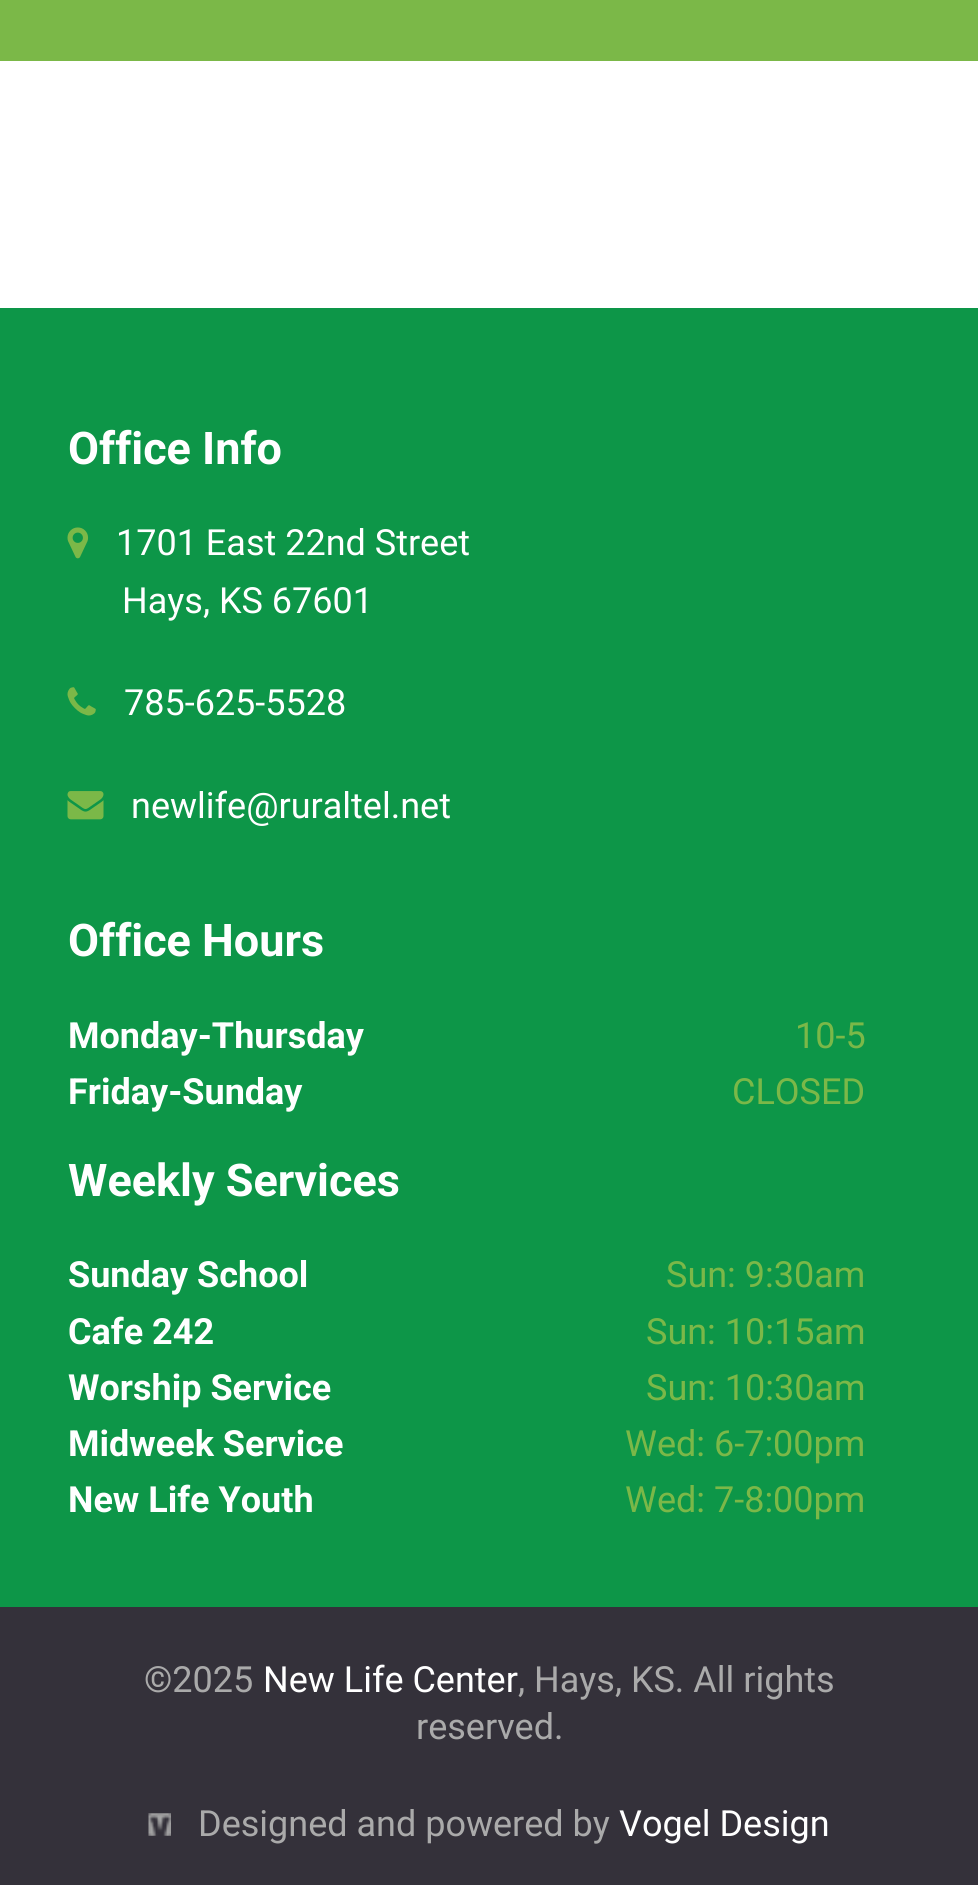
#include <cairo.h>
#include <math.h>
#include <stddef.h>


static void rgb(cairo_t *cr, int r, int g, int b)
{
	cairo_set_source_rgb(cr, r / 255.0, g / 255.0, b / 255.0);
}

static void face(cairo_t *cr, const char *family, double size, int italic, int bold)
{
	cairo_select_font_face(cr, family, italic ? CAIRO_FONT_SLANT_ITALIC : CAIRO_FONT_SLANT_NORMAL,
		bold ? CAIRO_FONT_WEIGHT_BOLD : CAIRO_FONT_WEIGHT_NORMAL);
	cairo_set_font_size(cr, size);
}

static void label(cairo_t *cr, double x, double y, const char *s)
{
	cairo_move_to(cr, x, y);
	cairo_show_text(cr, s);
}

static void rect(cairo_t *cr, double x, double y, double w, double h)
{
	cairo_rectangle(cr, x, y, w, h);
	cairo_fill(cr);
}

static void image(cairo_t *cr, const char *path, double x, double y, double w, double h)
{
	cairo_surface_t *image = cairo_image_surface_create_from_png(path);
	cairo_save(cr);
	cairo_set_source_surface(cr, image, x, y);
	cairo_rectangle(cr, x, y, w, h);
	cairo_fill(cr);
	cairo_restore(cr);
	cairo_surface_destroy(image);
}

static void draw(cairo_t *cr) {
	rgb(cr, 255, 255, 255);
	cairo_paint(cr);
	rgb(cr, 123, 184, 72);
	rect(cr, 0, 0, 978, 61);
	rgb(cr, 13, 150, 72);
	rect(cr, 0, 308, 978, 1299);
	face(cr, "Roboto", 45, 0, 1);
	rgb(cr, 255, 255, 255);
	label(cr, 68, 464, "Office Info");
	image(cr, "image0.png", 67, 527, 22, 32);
	face(cr, "Roboto", 36, 0, 0);
	label(cr, 116, 555, "1701 East 22nd Street");
	label(cr, 122, 613, "Hays, KS 67601");
	image(cr, "image1.png", 67, 687, 29, 29);
	label(cr, 124, 715, "785-625-5528");
	image(cr, "image2.png", 67, 791, 37, 29);
	label(cr, 131, 818, "newlife@ruraltel.net");
	face(cr, "Roboto", 45, 0, 1);
	label(cr, 68, 956, "Office Hours");
	face(cr, "Roboto", 36, 0, 1);
	label(cr, 68, 1048, "Monday-Thursday");
	label(cr, 68, 1104, "Friday-Sunday");
	face(cr, "Roboto", 36, 0, 0);
	rgb(cr, 123, 184, 72);
	label(cr, 795, 1048, "10-5");
	label(cr, 732, 1104, "CLOSED");
	face(cr, "Roboto", 45, 0, 1);
	rgb(cr, 255, 255, 255);
	label(cr, 68, 1196, "Weekly Services");
	face(cr, "Roboto", 36, 0, 1);
	label(cr, 68, 1287, "Sunday School");
	label(cr, 68, 1344, "Cafe 242");
	label(cr, 68, 1400, "Worship Service");
	label(cr, 68, 1456, "Midweek Service");
	label(cr, 68, 1512, "New Life Youth");
	face(cr, "Roboto", 36, 0, 0);
	rgb(cr, 123, 184, 72);
	label(cr, 666, 1287, "Sun: 9:30am");
	label(cr, 646, 1344, "Sun: 10:15am");
	label(cr, 646, 1400, "Sun: 10:30am");
	label(cr, 625, 1456, "Wed: 6-7:00pm");
	label(cr, 625, 1512, "Wed: 7-8:00pm");
	rgb(cr, 52, 49, 58);
	rect(cr, 0, 1607, 978, 278);
	rgb(cr, 170, 170, 170);
	label(cr, 144, 1692, "©2025");
	rgb(cr, 255, 255, 255);
	label(cr, 263, 1692, "New Life Center");
	rgb(cr, 170, 170, 170);
	label(cr, 518, 1692, ", Hays, KS. All rights");
	label(cr, 416, 1739, "reserved.");
	image(cr, "image3.png", 148, 1813, 23, 23);
	label(cr, 198, 1836, "Designed and powered by");
	rgb(cr, 255, 255, 255);
	label(cr, 619, 1836, "Vogel Design");
}

int main(void) {
	cairo_surface_t *surface = cairo_image_surface_create(CAIRO_FORMAT_RGB24, 978, 1885);
	cairo_t *cr = cairo_create(surface);
	cairo_font_options_t *options = cairo_font_options_create();
	cairo_font_options_set_hint_metrics(options, CAIRO_HINT_METRICS_OFF);
	cairo_font_options_set_hint_style(options, CAIRO_HINT_STYLE_NONE);
	cairo_set_font_options(cr, options);
	cairo_set_miter_limit(cr, 4);
	draw(cr);
	cairo_surface_write_to_png(surface, "render.png");
	cairo_font_options_destroy(options);
	cairo_destroy(cr);
	cairo_surface_destroy(surface);
	return 0;
}
